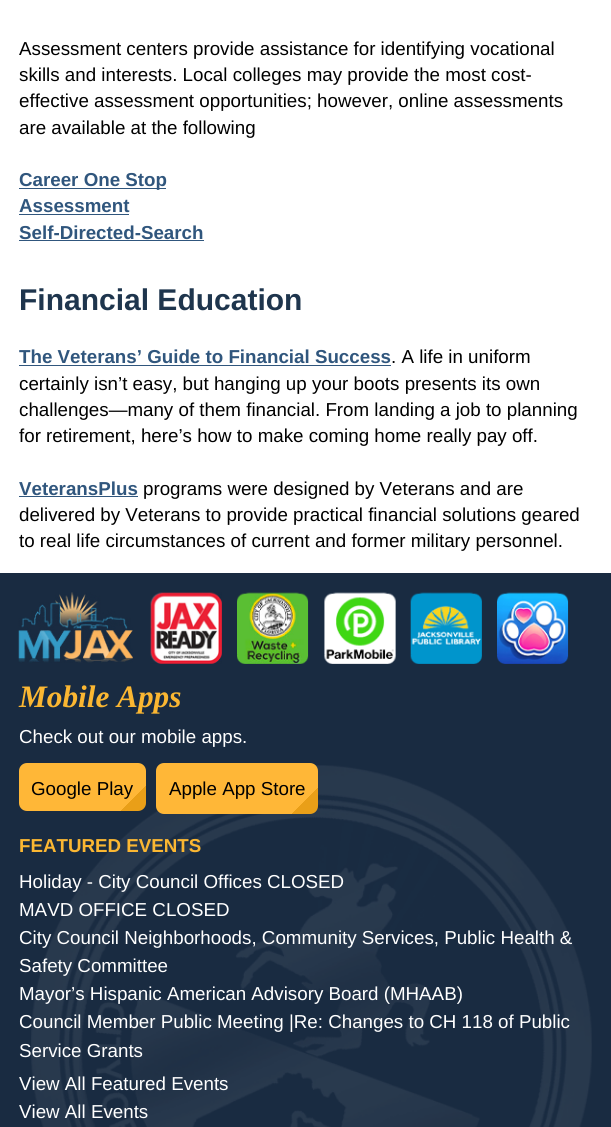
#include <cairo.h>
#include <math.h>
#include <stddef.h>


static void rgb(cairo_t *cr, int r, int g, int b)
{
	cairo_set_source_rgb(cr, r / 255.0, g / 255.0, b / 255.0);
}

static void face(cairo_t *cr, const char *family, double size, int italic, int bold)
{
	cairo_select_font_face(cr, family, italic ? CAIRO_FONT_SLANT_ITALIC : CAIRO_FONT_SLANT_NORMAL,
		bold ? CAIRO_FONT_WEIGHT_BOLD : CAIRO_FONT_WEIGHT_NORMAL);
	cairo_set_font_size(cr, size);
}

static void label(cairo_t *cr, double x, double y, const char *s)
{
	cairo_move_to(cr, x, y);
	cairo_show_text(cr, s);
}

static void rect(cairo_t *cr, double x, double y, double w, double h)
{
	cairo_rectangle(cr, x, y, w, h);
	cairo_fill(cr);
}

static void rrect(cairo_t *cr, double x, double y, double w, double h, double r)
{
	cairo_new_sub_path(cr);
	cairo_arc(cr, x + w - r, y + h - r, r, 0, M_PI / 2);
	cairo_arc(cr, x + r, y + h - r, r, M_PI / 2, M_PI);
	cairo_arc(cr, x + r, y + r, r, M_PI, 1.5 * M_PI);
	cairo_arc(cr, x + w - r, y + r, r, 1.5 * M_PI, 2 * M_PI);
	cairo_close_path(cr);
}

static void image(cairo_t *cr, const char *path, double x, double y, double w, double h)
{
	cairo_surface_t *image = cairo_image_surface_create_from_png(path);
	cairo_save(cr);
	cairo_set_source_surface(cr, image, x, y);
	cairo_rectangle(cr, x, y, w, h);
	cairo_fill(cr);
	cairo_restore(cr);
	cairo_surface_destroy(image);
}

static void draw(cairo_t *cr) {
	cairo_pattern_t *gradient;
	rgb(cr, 255, 255, 255);
	cairo_paint(cr);
	face(cr, "Liberation Sans", 18.75, 0, 0);
	rgb(cr, 0, 0, 0);
	label(cr, 19, 55, "Assessment centers provide assistance for identifying vocational");
	label(cr, 19, 81, "skills and interests. Local colleges may provide the most cost-");
	label(cr, 19, 107, "effective assessment opportunities; however, online assessments");
	label(cr, 19, 134, "are available at the following");
	rgb(cr, 48, 86, 125);
	rect(cr, 19, 188, 147, 1);
	face(cr, "Liberation Sans", 18.75, 0, 1);
	label(cr, 19, 186, "Career One Stop");
	label(cr, 19, 212, "Assessment");
	rect(cr, 19, 214, 110, 1);
	label(cr, 19, 239, "Self-Directed-Search");
	rect(cr, 19, 240, 185, 1);
	face(cr, "Liberation Sans", 30, 0, 1);
	rgb(cr, 30, 53, 77);
	label(cr, 19, 310, "Financial Education");
	face(cr, "Liberation Sans", 18.75, 0, 1);
	rgb(cr, 48, 86, 125);
	label(cr, 19, 363, "The Veterans’ Guide to Financial Success");
	rect(cr, 19, 365, 372, 1);
	face(cr, "Liberation Sans", 18.75, 0, 0);
	rgb(cr, 0, 0, 0);
	label(cr, 391, 363, ". A life in uniform");
	label(cr, 19, 390, "certainly isn’t easy, but hanging up your boots presents its own");
	label(cr, 19, 416, "challenges—many of them financial. From landing a job to planning");
	label(cr, 19, 442, "for retirement, here’s how to make coming home really pay off.");
	face(cr, "Liberation Sans", 18.75, 0, 1);
	rgb(cr, 48, 86, 125);
	label(cr, 19, 495, "VeteransPlus");
	rect(cr, 19, 496, 119, 1);
	face(cr, "Liberation Sans", 18.75, 0, 0);
	rgb(cr, 0, 0, 0);
	label(cr, 143, 495, "programs were designed by Veterans and are");
	label(cr, 19, 521, "delivered by Veterans to provide practical financial solutions geared");
	label(cr, 19, 547, "to real life circumstances of current and former military personnel.");
	rgb(cr, 25, 43, 65);
	rect(cr, 0, 573, 611, 554);
	image(cr, "image0.png", 18, 592, 115, 71);
	image(cr, "image1.png", 150, 592, 72, 72);
	image(cr, "image2.png", 237, 592, 72, 72);
	image(cr, "image3.png", 324, 592, 72, 72);
	image(cr, "image4.png", 410, 592, 72, 72);
	image(cr, "image5.png", 497, 592, 72, 72);
	face(cr, "Liberation Serif", 31.25, 1, 1);
	rgb(cr, 251, 183, 50);
	label(cr, 19, 707, "Mobile Apps");
	face(cr, "Liberation Sans", 18.75, 0, 0);
	rgb(cr, 255, 255, 255);
	label(cr, 19, 743, "Check out our mobile apps.");
	image(cr, "image6.png", 31, 765, 561, 362);
	gradient = cairo_pattern_create_linear(127, 831, 38, 743);
	cairo_pattern_add_color_stop_rgba(gradient, 0, 0.914, 0.624, 0.094, 1);
	cairo_pattern_add_color_stop_rgba(gradient, 0.15, 0.914, 0.624, 0.094, 1);
	cairo_pattern_add_color_stop_rgba(gradient, 0.15, 1, 0.718, 0.216, 1);
	cairo_pattern_add_color_stop_rgba(gradient, 1, 1, 0.718, 0.216, 1);
	cairo_set_source(cr, gradient);
	cairo_pattern_destroy(gradient);
	rrect(cr, 19, 763, 127, 48, 8);
	cairo_fill(cr);
	rgb(cr, 0, 0, 0);
	label(cr, 31, 795, "Google Play");
	gradient = cairo_pattern_create_linear(290, 841, 184, 735);
	cairo_pattern_add_color_stop_rgba(gradient, 0, 0.914, 0.624, 0.094, 1);
	cairo_pattern_add_color_stop_rgba(gradient, 0.12, 0.914, 0.624, 0.094, 1);
	cairo_pattern_add_color_stop_rgba(gradient, 0.12, 1, 0.718, 0.216, 1);
	cairo_pattern_add_color_stop_rgba(gradient, 1, 1, 0.718, 0.216, 1);
	cairo_set_source(cr, gradient);
	cairo_pattern_destroy(gradient);
	rrect(cr, 156, 763, 162, 51, 8);
	cairo_fill(cr);
	rgb(cr, 0, 0, 0);
	label(cr, 169, 795, "Apple App Store");
	face(cr, "Liberation Sans", 18.75, 0, 1);
	rgb(cr, 251, 183, 50);
	label(cr, 19, 852, "FEATURED EVENTS");
	face(cr, "Liberation Sans", 18.75, 0, 0);
	rgb(cr, 255, 255, 255);
	label(cr, 19, 888, "Holiday - City Council Offices CLOSED");
	label(cr, 19, 916, "MAVD OFFICE CLOSED");
	label(cr, 19, 944, "City Council Neighborhoods, Community Services, Public Health &");
	label(cr, 19, 972, "Safety Committee");
	label(cr, 19, 1000, "Mayor’s Hispanic American Advisory Board (MHAAB)");
	label(cr, 19, 1028, "Council Member Public Meeting |Re: Changes to CH 118 of Public");
	label(cr, 19, 1057, "Service Grants");
	label(cr, 19, 1090, "View All Featured Events");
	label(cr, 19, 1118, "View All Events");
}

int main(void) {
	cairo_surface_t *surface = cairo_image_surface_create(CAIRO_FORMAT_RGB24, 611, 1127);
	cairo_t *cr = cairo_create(surface);
	cairo_font_options_t *options = cairo_font_options_create();
	cairo_font_options_set_hint_metrics(options, CAIRO_HINT_METRICS_OFF);
	cairo_font_options_set_hint_style(options, CAIRO_HINT_STYLE_NONE);
	cairo_set_font_options(cr, options);
	cairo_set_miter_limit(cr, 4);
	draw(cr);
	cairo_surface_write_to_png(surface, "render.png");
	cairo_font_options_destroy(options);
	cairo_destroy(cr);
	cairo_surface_destroy(surface);
	return 0;
}
